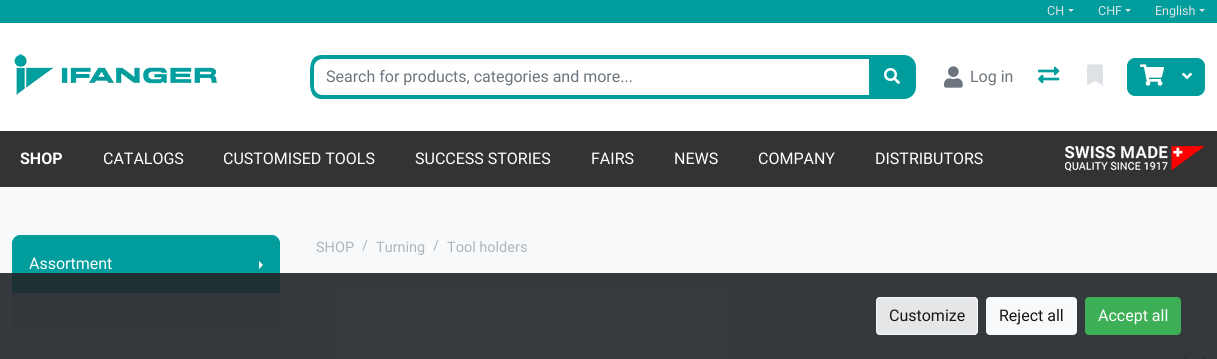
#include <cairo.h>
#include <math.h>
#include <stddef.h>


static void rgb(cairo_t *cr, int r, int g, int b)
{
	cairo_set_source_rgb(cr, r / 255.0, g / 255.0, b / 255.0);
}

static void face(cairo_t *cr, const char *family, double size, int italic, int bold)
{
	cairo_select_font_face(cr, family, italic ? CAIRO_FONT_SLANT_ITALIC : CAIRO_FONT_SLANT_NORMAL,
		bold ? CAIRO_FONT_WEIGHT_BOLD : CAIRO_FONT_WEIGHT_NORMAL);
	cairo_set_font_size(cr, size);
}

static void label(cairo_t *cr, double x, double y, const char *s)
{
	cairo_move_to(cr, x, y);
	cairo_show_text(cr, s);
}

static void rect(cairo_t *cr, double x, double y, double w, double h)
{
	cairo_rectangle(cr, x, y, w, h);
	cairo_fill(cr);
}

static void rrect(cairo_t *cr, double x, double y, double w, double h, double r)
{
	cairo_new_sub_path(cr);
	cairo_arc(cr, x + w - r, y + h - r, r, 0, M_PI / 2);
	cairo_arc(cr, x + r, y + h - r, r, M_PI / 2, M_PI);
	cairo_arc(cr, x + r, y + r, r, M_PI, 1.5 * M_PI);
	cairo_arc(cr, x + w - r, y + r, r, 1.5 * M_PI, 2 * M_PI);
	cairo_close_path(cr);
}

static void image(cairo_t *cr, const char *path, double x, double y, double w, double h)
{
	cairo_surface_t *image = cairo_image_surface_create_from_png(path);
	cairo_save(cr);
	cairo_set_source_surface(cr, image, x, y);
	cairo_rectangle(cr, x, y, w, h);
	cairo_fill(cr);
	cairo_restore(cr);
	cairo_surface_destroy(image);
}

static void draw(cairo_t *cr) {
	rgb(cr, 248, 249, 250);
	cairo_paint(cr);
	rgb(cr, 1, 157, 156);
	rect(cr, 0, 0, 1217, 23);
	face(cr, "Roboto", 12.5, 0, 0);
	rgb(cr, 222, 226, 230);
	label(cr, 1047, 15, "CH");
	cairo_new_path(cr);
	cairo_move_to(cr, 1068, 9);
	cairo_line_to(cr, 1074, 9);
	cairo_line_to(cr, 1071, 12);
	cairo_close_path(cr);
	cairo_fill(cr);
	label(cr, 1098, 15, "CHF");
	cairo_new_path(cr);
	cairo_move_to(cr, 1125, 9);
	cairo_line_to(cr, 1131, 9);
	cairo_line_to(cr, 1128, 12);
	cairo_close_path(cr);
	cairo_fill(cr);
	label(cr, 1155, 15, "English");
	cairo_new_path(cr);
	cairo_move_to(cr, 1199, 9);
	cairo_line_to(cr, 1205, 9);
	cairo_line_to(cr, 1202, 12);
	cairo_close_path(cr);
	cairo_fill(cr);
	rgb(cr, 255, 255, 255);
	rect(cr, 0, 23, 1217, 108);
	image(cr, "image0.png", 14, 54, 204, 41);
	rgb(cr, 1, 157, 156);
	cairo_new_path(cr);
	cairo_move_to(cr, 870, 57);
	cairo_line_to(cr, 904, 57);
	cairo_curve_to(cr, 909.5, 57, 914, 61.5, 914, 67);
	cairo_line_to(cr, 914, 87);
	cairo_curve_to(cr, 914, 92.5, 909.5, 97, 904, 97);
	cairo_line_to(cr, 870, 97);
	cairo_close_path(cr);
	cairo_fill_preserve(cr);
	cairo_set_line_width(cr, 4);
	cairo_stroke(cr);
	rgb(cr, 255, 255, 255);
	cairo_new_path(cr);
	cairo_move_to(cr, 322, 59);
	cairo_line_to(cr, 869, 59);
	cairo_line_to(cr, 869, 95);
	cairo_line_to(cr, 322, 95);
	cairo_curve_to(cr, 317.5, 95, 314, 91.5, 314, 87);
	cairo_line_to(cr, 314, 67);
	cairo_curve_to(cr, 314, 62.5, 317.5, 59, 322, 59);
	cairo_close_path(cr);
	cairo_fill(cr);
	rgb(cr, 1, 157, 156);
	cairo_set_fill_rule(cr, CAIRO_FILL_RULE_EVEN_ODD);
	cairo_new_path(cr);
	cairo_move_to(cr, 322, 55);
	cairo_line_to(cr, 869, 55);
	cairo_line_to(cr, 869, 99);
	cairo_line_to(cr, 320, 99);
	cairo_curve_to(cr, 309, 97, 310, 85, 310, 77);
	cairo_curve_to(cr, 310, 68, 309, 55, 322, 55);
	cairo_close_path(cr);
	cairo_move_to(cr, 322, 59);
	cairo_line_to(cr, 869, 59);
	cairo_line_to(cr, 869, 95);
	cairo_line_to(cr, 322, 95);
	cairo_curve_to(cr, 318, 95, 314, 91, 314, 87);
	cairo_line_to(cr, 314, 67);
	cairo_curve_to(cr, 314, 63, 318, 59, 322, 59);
	cairo_close_path(cr);
	cairo_fill(cr);
	face(cr, "Roboto", 16, 0, 0);
	rgb(cr, 108, 117, 125);
	label(cr, 326, 82, "Search for products, categories and more...");
	image(cr, "image1.png", 884, 68, 16, 16);
	image(cr, "image2.png", 944, 66, 19, 22);
	label(cr, 970, 82, "Log in");
	image(cr, "image3.png", 1038, 66, 22, 18);
	image(cr, "image4.png", 1087, 64, 16, 22);
	rgb(cr, 1, 157, 156);
	cairo_new_path(cr);
	cairo_move_to(cr, 1135, 58.5);
	cairo_line_to(cr, 1172.5, 58.5);
	cairo_line_to(cr, 1172.5, 95.5);
	cairo_line_to(cr, 1135, 95.5);
	cairo_curve_to(cr, 1131, 95.5, 1127.5, 92, 1127.5, 88);
	cairo_line_to(cr, 1127.5, 66);
	cairo_curve_to(cr, 1127.5, 62, 1131, 58.5, 1135, 58.5);
	cairo_close_path(cr);
	cairo_fill_preserve(cr);
	cairo_set_line_width(cr, 1);
	cairo_stroke(cr);
	image(cr, "image5.png", 1140, 64, 24, 22);
	cairo_new_path(cr);
	cairo_move_to(cr, 1173.5, 58.5);
	cairo_line_to(cr, 1197, 58.5);
	cairo_curve_to(cr, 1201, 58.5, 1204.5, 62, 1204.5, 66);
	cairo_line_to(cr, 1204.5, 88);
	cairo_curve_to(cr, 1204.5, 92, 1201, 95.5, 1197, 95.5);
	cairo_line_to(cr, 1173.5, 95.5);
	cairo_close_path(cr);
	cairo_fill_preserve(cr);
	cairo_stroke(cr);
	image(cr, "image6.png", 1182, 72, 10, 8);
	rgb(cr, 51, 51, 51);
	rect(cr, 0, 131, 1217, 56);
	face(cr, "Roboto", 16, 0, 1);
	rgb(cr, 255, 255, 255);
	label(cr, 20, 164, "SHOP");
	face(cr, "Roboto", 16, 0, 0);
	label(cr, 103, 164, "CATALOGS");
	label(cr, 223, 164, "CUSTOMISED TOOLS");
	label(cr, 415, 164, "SUCCESS STORIES");
	label(cr, 591, 164, "FAIRS");
	label(cr, 674, 164, "NEWS");
	label(cr, 758, 164, "COMPANY");
	label(cr, 875, 164, "DISTRIBUTORS");
	image(cr, "image7.png", 1065, 146, 140, 25);
	face(cr, "Roboto", 14.5, 0, 0);
	rgb(cr, 173, 181, 189);
	label(cr, 316, 252, "SHOP");
	label(cr, 362, 250, "/");
	label(cr, 376, 252, "Turning");
	label(cr, 433, 250, "/");
	label(cr, 447, 252, "Tool holders");
	rgb(cr, 255, 255, 255);
	rect(cr, 332, 287, 400, 72);
	image(cr, "image8.png", 1184, 347, 22, 12);
	rect(cr, 12, 235, 268, 8);
	rgb(cr, 1, 157, 156);
	cairo_new_path(cr);
	cairo_move_to(cr, 20, 235.5);
	cairo_line_to(cr, 272, 235.5);
	cairo_curve_to(cr, 276, 235.5, 279.5, 239, 279.5, 243);
	cairo_line_to(cr, 279.5, 292.5);
	cairo_line_to(cr, 12.5, 292.5);
	cairo_line_to(cr, 12.5, 243);
	cairo_curve_to(cr, 12.5, 239, 16, 235.5, 20, 235.5);
	cairo_close_path(cr);
	cairo_fill_preserve(cr);
	cairo_stroke(cr);
	face(cr, "Roboto", 16, 0, 0);
	rgb(cr, 255, 255, 255);
	label(cr, 29, 269, "Assortment");
	cairo_set_fill_rule(cr, CAIRO_FILL_RULE_WINDING);
	cairo_new_path(cr);
	cairo_move_to(cr, 259, 269);
	cairo_line_to(cr, 259, 261);
	cairo_line_to(cr, 263, 265);
	cairo_close_path(cr);
	cairo_fill(cr);
	rgb(cr, 222, 226, 230);
	rect(cr, 13, 293, 267, 32);
	rgb(cr, 173, 181, 189);
	rect(cr, 12, 325, 268, 1);
	rgb(cr, 222, 226, 230);
	rect(cr, 12, 293, 1, 66);
	rect(cr, 279, 326, 1, 33);
	cairo_set_source_rgba(cr, 0.129, 0.145, 0.161, 0.9);
	rect(cr, 0, 273, 1217, 86);
	cairo_set_source_rgba(cr, 0.973, 0.976, 0.98, 0.9);
	rrect(cr, 876, 297, 102, 38, 4);
	cairo_fill(cr);
	rrect(cr, 876.5, 297.5, 101, 37, 3.5);
	cairo_stroke(cr);
	rgb(cr, 23, 23, 23);
	label(cr, 889, 321, "Customize");
	rgb(cr, 248, 249, 250);
	rrect(cr, 986.5, 297.5, 90, 37, 3.5);
	cairo_fill_preserve(cr);
	cairo_stroke(cr);
	rgb(cr, 23, 23, 23);
	label(cr, 999, 321, "Reject all");
	rgb(cr, 61, 175, 87);
	rrect(cr, 1085.5, 297.5, 95, 37, 3.5);
	cairo_fill_preserve(cr);
	cairo_stroke(cr);
	rgb(cr, 255, 255, 255);
	label(cr, 1098, 321, "Accept all");
}

int main(void) {
	cairo_surface_t *surface = cairo_image_surface_create(CAIRO_FORMAT_RGB24, 1217, 359);
	cairo_t *cr = cairo_create(surface);
	cairo_font_options_t *options = cairo_font_options_create();
	cairo_font_options_set_hint_metrics(options, CAIRO_HINT_METRICS_OFF);
	cairo_font_options_set_hint_style(options, CAIRO_HINT_STYLE_NONE);
	cairo_set_font_options(cr, options);
	cairo_set_miter_limit(cr, 4);
	draw(cr);
	cairo_surface_write_to_png(surface, "render.png");
	cairo_font_options_destroy(options);
	cairo_destroy(cr);
	cairo_surface_destroy(surface);
	return 0;
}
